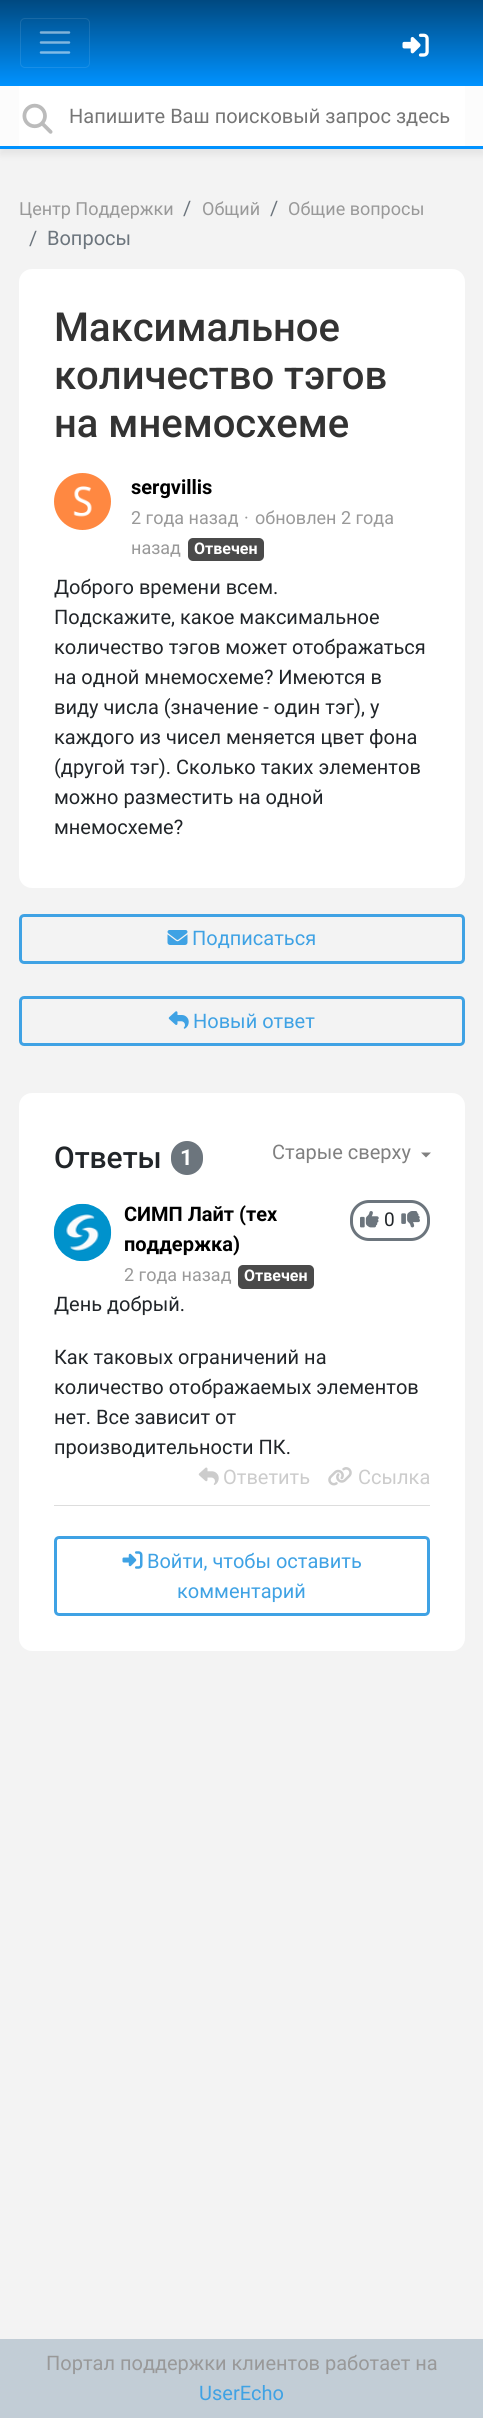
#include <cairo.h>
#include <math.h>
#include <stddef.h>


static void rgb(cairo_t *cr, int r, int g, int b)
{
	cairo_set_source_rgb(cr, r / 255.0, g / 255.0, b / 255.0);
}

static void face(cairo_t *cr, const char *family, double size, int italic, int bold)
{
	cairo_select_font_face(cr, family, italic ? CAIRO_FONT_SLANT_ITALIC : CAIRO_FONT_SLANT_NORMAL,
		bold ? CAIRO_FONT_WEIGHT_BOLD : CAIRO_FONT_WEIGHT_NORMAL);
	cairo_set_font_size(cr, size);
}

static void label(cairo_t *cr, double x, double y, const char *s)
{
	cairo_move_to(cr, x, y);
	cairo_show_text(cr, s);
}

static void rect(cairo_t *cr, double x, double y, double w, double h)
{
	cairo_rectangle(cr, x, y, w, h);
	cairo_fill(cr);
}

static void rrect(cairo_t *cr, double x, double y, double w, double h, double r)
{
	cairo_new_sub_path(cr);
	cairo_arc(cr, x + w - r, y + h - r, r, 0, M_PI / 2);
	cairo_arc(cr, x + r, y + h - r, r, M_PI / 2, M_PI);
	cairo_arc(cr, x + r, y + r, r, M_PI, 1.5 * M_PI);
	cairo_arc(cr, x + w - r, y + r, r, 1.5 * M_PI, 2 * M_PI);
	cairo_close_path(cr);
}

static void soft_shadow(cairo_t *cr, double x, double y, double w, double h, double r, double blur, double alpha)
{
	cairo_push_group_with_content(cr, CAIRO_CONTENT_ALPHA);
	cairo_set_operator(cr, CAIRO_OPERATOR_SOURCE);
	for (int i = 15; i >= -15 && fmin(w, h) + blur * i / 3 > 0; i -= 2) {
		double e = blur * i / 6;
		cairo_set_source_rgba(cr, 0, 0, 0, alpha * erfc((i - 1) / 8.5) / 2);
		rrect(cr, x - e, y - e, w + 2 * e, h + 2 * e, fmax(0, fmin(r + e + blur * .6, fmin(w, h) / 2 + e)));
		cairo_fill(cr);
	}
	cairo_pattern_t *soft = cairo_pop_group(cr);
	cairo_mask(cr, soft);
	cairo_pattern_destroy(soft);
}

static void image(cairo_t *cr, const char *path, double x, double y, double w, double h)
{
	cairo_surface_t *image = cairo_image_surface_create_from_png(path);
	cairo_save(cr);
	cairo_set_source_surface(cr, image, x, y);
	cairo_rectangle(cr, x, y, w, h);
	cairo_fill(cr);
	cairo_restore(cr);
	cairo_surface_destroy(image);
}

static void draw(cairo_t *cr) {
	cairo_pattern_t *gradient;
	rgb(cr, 243, 243, 243);
	cairo_paint(cr);
	gradient = cairo_pattern_create_linear(242, 0, 242, 86);
	cairo_pattern_add_color_stop_rgba(gradient, 0, 0, 0.286, 0.502, 1);
	cairo_pattern_add_color_stop_rgba(gradient, 1, 0, 0.573, 1, 1);
	cairo_set_source(cr, gradient);
	cairo_pattern_destroy(gradient);
	rect(cr, 0, 0, 483, 86);
	rrect(cr, 20.5, 18.5, 69, 49, 4.5);
	cairo_set_source_rgba(cr, 1, 1, 1, 0.1);
	cairo_set_line_width(cr, 1);
	cairo_stroke(cr);
	cairo_new_path(cr);
	cairo_move_to(cr, 41, 32.5);
	cairo_line_to(cr, 69, 32.5);
	cairo_move_to(cr, 41, 42.5);
	cairo_line_to(cr, 69, 42.5);
	cairo_move_to(cr, 41, 52.5);
	cairo_line_to(cr, 69, 52.5);
	cairo_set_source_rgba(cr, 1, 1, 1, 0.5);
	cairo_set_line_width(cr, 2.5);
	cairo_set_line_cap(cr, CAIRO_LINE_CAP_ROUND);
	cairo_stroke(cr);
	image(cr, "image0.png", 402, 33, 27, 24);
	rgb(cr, 100, 100, 100);
	soft_shadow(cr, 0, 93, 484, 62, 0, 3, 0.1);
	rgb(cr, 252, 252, 252);
	rect(cr, 0, 86, 483, 60);
	rgb(cr, 0, 146, 255);
	rect(cr, 0, 146, 483, 3);
	rgb(cr, 255, 255, 255);
	rect(cr, 19, 86, 446, 60);
	image(cr, "image1.png", 22, 103, 31, 31);
	face(cr, "Roboto", 20, 0, 0);
	rgb(cr, 117, 117, 117);
	label(cr, 69, 123, "Напишите Ваш поисковый запрос здесь");
	face(cr, "Roboto", 18, 0, 0);
	rgb(cr, 153, 153, 153);
	label(cr, 19, 215, "Центр Поддержки");
	face(cr, "Roboto", 20, 0, 0);
	rgb(cr, 108, 117, 125);
	label(cr, 183, 215, "/");
	face(cr, "Roboto", 18, 0, 0);
	rgb(cr, 153, 153, 153);
	label(cr, 202, 215, "Общий");
	face(cr, "Roboto", 20, 0, 0);
	rgb(cr, 108, 117, 125);
	label(cr, 270, 215, "/");
	face(cr, "Roboto", 18, 0, 0);
	rgb(cr, 153, 153, 153);
	label(cr, 288, 215, "Общие вопросы");
	face(cr, "Roboto", 20, 0, 0);
	rgb(cr, 108, 117, 125);
	label(cr, 29, 245, "/");
	label(cr, 47, 245, "Вопросы");
	rgb(cr, 255, 255, 255);
	rrect(cr, 19, 269, 446, 619, 13);
	cairo_fill(cr);
	face(cr, "Roboto Medium", 40, 0, 0);
	rgb(cr, 51, 51, 51);
	label(cr, 54, 341, "Максимальное");
	label(cr, 54, 389, "количество тэгов");
	label(cr, 54, 437, "на мнемосхеме");
	rgb(cr, 255, 136, 65);
	cairo_new_path(cr);
	cairo_arc(cr, 82.5, 501.5, 28.5, 0, 2 * M_PI);
	cairo_fill(cr);
	image(cr, "image2.png", 73, 486, 19, 31);
	face(cr, "Roboto", 20, 0, 1);
	rgb(cr, 0, 0, 0);
	label(cr, 131, 494, "sergvillis");
	face(cr, "Roboto", 18, 0, 0);
	rgb(cr, 153, 153, 153);
	label(cr, 244, 524, "·");
	label(cr, 255, 524, "обновлен 2 года");
	label(cr, 131, 554, "назад");
	label(cr, 131, 524, "2 года назад");
	rgb(cr, 74, 74, 74);
	rrect(cr, 188, 538, 76, 23, 5);
	cairo_fill(cr);
	face(cr, "Roboto", 16, 0, 1);
	rgb(cr, 255, 255, 255);
	label(cr, 194, 554, "Отвечен");
	face(cr, "Roboto", 20, 0, 0);
	rgb(cr, 33, 37, 41);
	label(cr, 54, 594, "Доброго времени всем.");
	label(cr, 54, 624, "Подскажите, какое максимальное");
	label(cr, 54, 654, "количество тэгов может отображаться");
	label(cr, 54, 684, "на одной мнемосхеме? Имеются в");
	label(cr, 54, 714, "виду числа (значение - один тэг), у");
	label(cr, 54, 744, "каждого из чисел меняется цвет фона");
	label(cr, 54, 774, "(другой тэг). Сколько таких элементов");
	label(cr, 54, 804, "можно разместить на одной");
	label(cr, 54, 834, "мнемосхеме?");
	rrect(cr, 20.5, 915.5, 443, 47, 3.5);
	rgb(cr, 63, 162, 228);
	cairo_set_line_width(cr, 3);
	cairo_set_line_cap(cr, CAIRO_LINE_CAP_BUTT);
	cairo_stroke(cr);
	image(cr, "image3.png", 167, 930, 21, 15);
	label(cr, 192, 945, "Подписаться");
	rrect(cr, 20.5, 997.5, 443, 47, 3.5);
	cairo_stroke(cr);
	image(cr, "image4.png", 168, 1011, 21, 18);
	label(cr, 193, 1028, "Новый ответ");
	rgb(cr, 255, 255, 255);
	rrect(cr, 19, 1093, 446, 558, 13);
	cairo_fill(cr);
	face(cr, "Roboto Medium", 30, 0, 0);
	rgb(cr, 33, 37, 41);
	label(cr, 54, 1168, "Ответы");
	rgb(cr, 108, 117, 125);
	rrect(cr, 171, 1141, 32, 34, 16);
	cairo_fill(cr);
	face(cr, "Roboto", 22, 0, 1);
	rgb(cr, 255, 255, 255);
	label(cr, 180, 1165, "1");
	face(cr, "Roboto", 20, 0, 0);
	rgb(cr, 128, 128, 128);
	label(cr, 272, 1159, "Старые сверху");
	cairo_new_path(cr);
	cairo_move_to(cr, 421, 1152.5);
	cairo_line_to(cr, 431, 1152.5);
	cairo_line_to(cr, 426, 1157.5);
	cairo_close_path(cr);
	cairo_fill(cr);
	rgb(cr, 221, 221, 221);
	rect(cr, 54, 1505, 376, 1);
	image(cr, "image5.png", 53, 1203, 59, 59);
	face(cr, "Roboto", 20, 0, 1);
	rgb(cr, 0, 0, 0);
	label(cr, 124, 1221, "СИМП Лайт (тех");
	label(cr, 124, 1251, "поддержка)");
	face(cr, "Roboto", 18, 0, 0);
	rgb(cr, 153, 153, 153);
	label(cr, 124, 1281, "2 года назад");
	rgb(cr, 74, 74, 74);
	rrect(cr, 238, 1265, 76, 24, 5);
	cairo_fill(cr);
	face(cr, "Roboto", 16, 0, 1);
	rgb(cr, 255, 255, 255);
	label(cr, 244, 1281, "Отвечен");
	rrect(cr, 351.5, 1201.5, 77, 38, 17.5);
	rgb(cr, 108, 117, 125);
	cairo_stroke(cr);
	image(cr, "image6.png", 360, 1211, 19, 17);
	face(cr, "Roboto", 19, 0, 0);
	rgb(cr, 33, 37, 41);
	label(cr, 384, 1226, "0");
	image(cr, "image7.png", 401, 1211, 19, 17);
	face(cr, "Roboto", 20, 0, 0);
	label(cr, 54, 1311, "День добрый.");
	label(cr, 54, 1364, "Как таковых ограничений на");
	label(cr, 54, 1394, "количество отображаемых элементов");
	label(cr, 54, 1424, "нет. Все зависит от");
	label(cr, 54, 1454, "производительности ПК.");
	image(cr, "image8.png", 198, 1467, 21, 18);
	rgb(cr, 204, 204, 204);
	label(cr, 223, 1484, "Ответить");
	image(cr, "image9.png", 328, 1467, 24, 19);
	label(cr, 358, 1484, "Ссылка");
	rrect(cr, 55.5, 1537.5, 373, 77, 3.5);
	rgb(cr, 63, 162, 228);
	cairo_stroke(cr);
	image(cr, "image10.png", 122, 1551, 21, 18);
	label(cr, 147, 1568, "Войти, чтобы оставить");
	label(cr, 177, 1598, "комментарий");
	rgb(cr, 194, 205, 214);
	rect(cr, 0, 2339, 483, 79);
	rgb(cr, 153, 153, 153);
	label(cr, 46, 2370, "Портал поддержки клиентов работает на");
	rgb(cr, 63, 162, 228);
	label(cr, 199, 2400, "UserEcho");
}

int main(void) {
	cairo_surface_t *surface = cairo_image_surface_create(CAIRO_FORMAT_RGB24, 483, 2418);
	cairo_t *cr = cairo_create(surface);
	cairo_font_options_t *options = cairo_font_options_create();
	cairo_font_options_set_hint_metrics(options, CAIRO_HINT_METRICS_OFF);
	cairo_font_options_set_hint_style(options, CAIRO_HINT_STYLE_NONE);
	cairo_set_font_options(cr, options);
	cairo_set_miter_limit(cr, 4);
	draw(cr);
	cairo_surface_write_to_png(surface, "render.png");
	cairo_font_options_destroy(options);
	cairo_destroy(cr);
	cairo_surface_destroy(surface);
	return 0;
}
